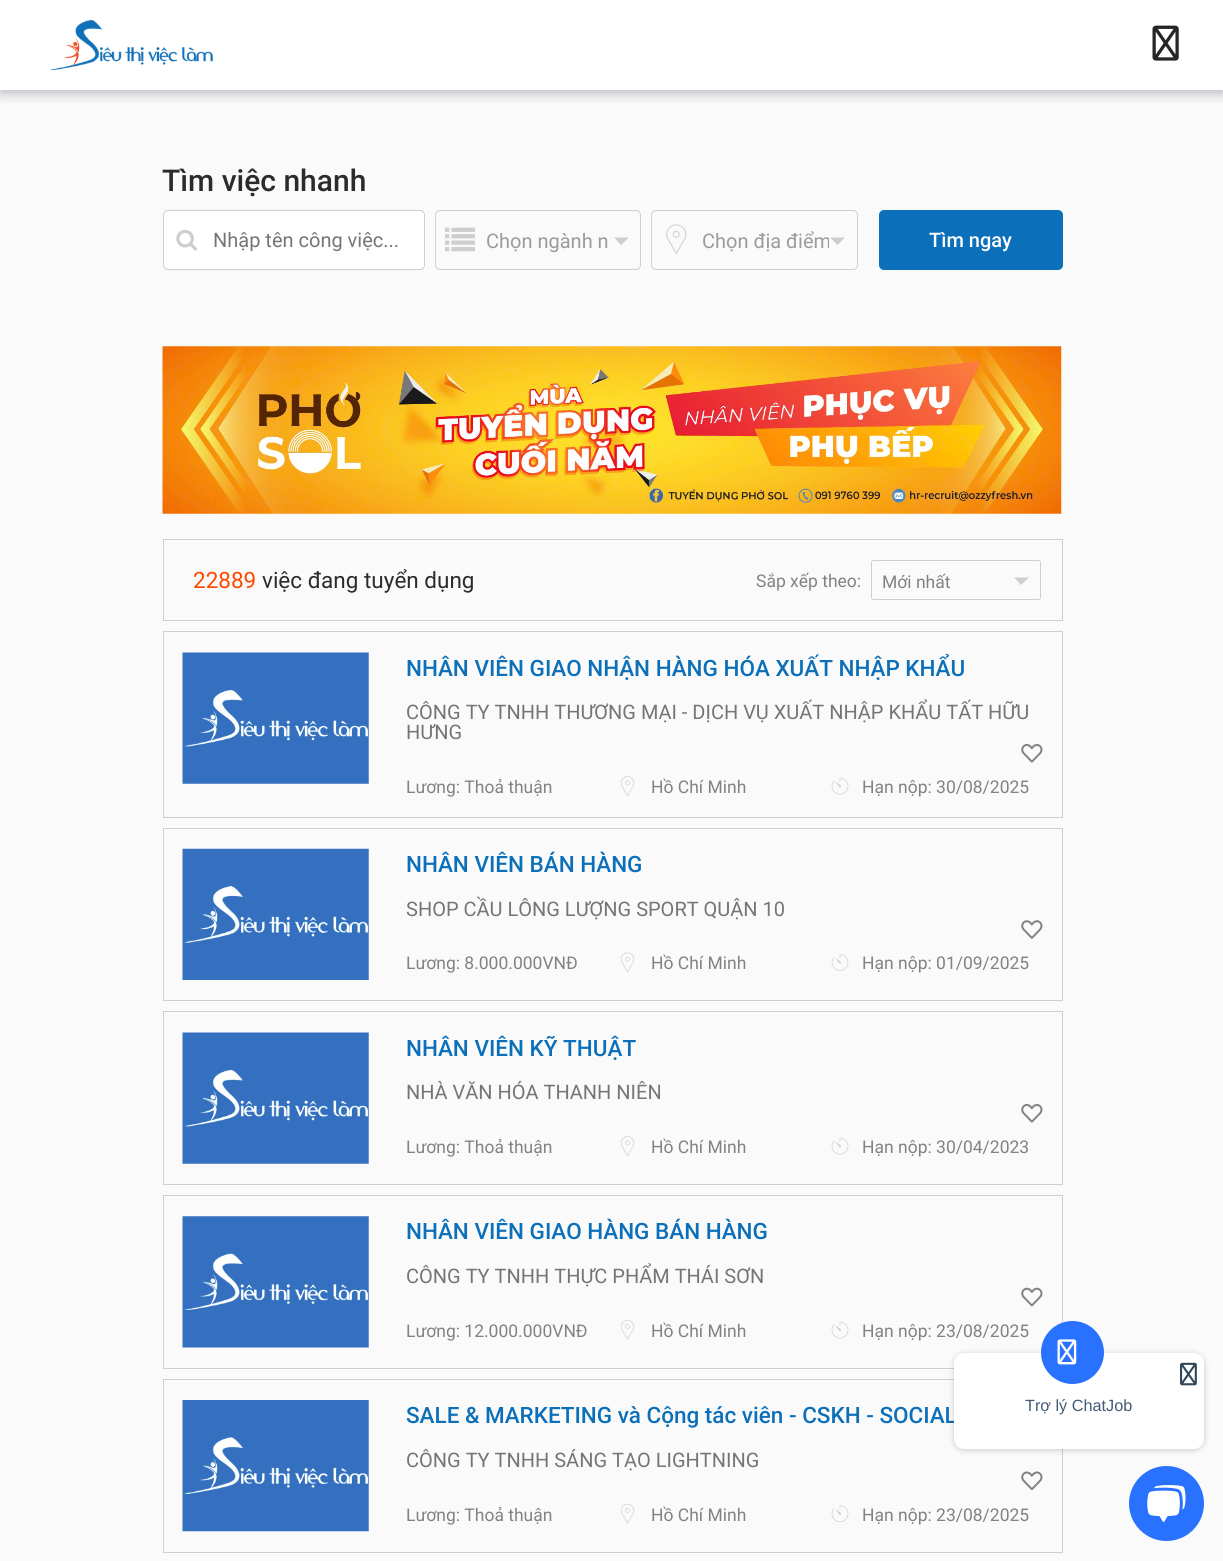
#include <cairo.h>
#include <math.h>
#include <stddef.h>


static void rgb(cairo_t *cr, int r, int g, int b)
{
	cairo_set_source_rgb(cr, r / 255.0, g / 255.0, b / 255.0);
}

static void face(cairo_t *cr, const char *family, double size, int italic, int bold)
{
	cairo_select_font_face(cr, family, italic ? CAIRO_FONT_SLANT_ITALIC : CAIRO_FONT_SLANT_NORMAL,
		bold ? CAIRO_FONT_WEIGHT_BOLD : CAIRO_FONT_WEIGHT_NORMAL);
	cairo_set_font_size(cr, size);
}

static void label(cairo_t *cr, double x, double y, const char *s)
{
	cairo_move_to(cr, x, y);
	cairo_show_text(cr, s);
}

static void rect(cairo_t *cr, double x, double y, double w, double h)
{
	cairo_rectangle(cr, x, y, w, h);
	cairo_fill(cr);
}

static void rrect(cairo_t *cr, double x, double y, double w, double h, double r)
{
	cairo_new_sub_path(cr);
	cairo_arc(cr, x + w - r, y + h - r, r, 0, M_PI / 2);
	cairo_arc(cr, x + r, y + h - r, r, M_PI / 2, M_PI);
	cairo_arc(cr, x + r, y + r, r, M_PI, 1.5 * M_PI);
	cairo_arc(cr, x + w - r, y + r, r, 1.5 * M_PI, 2 * M_PI);
	cairo_close_path(cr);
}

static void soft_shadow(cairo_t *cr, double x, double y, double w, double h, double r, double blur, double alpha)
{
	cairo_push_group_with_content(cr, CAIRO_CONTENT_ALPHA);
	cairo_set_operator(cr, CAIRO_OPERATOR_SOURCE);
	for (int i = 15; i >= -15 && fmin(w, h) + blur * i / 3 > 0; i -= 2) {
		double e = blur * i / 6;
		cairo_set_source_rgba(cr, 0, 0, 0, alpha * erfc((i - 1) / 8.5) / 2);
		rrect(cr, x - e, y - e, w + 2 * e, h + 2 * e, fmax(0, fmin(r + e + blur * .6, fmin(w, h) / 2 + e)));
		cairo_fill(cr);
	}
	cairo_pattern_t *soft = cairo_pop_group(cr);
	cairo_mask(cr, soft);
	cairo_pattern_destroy(soft);
}

static void image(cairo_t *cr, const char *path, double x, double y, double w, double h)
{
	cairo_surface_t *image = cairo_image_surface_create_from_png(path);
	cairo_save(cr);
	cairo_set_source_surface(cr, image, x, y);
	cairo_rectangle(cr, x, y, w, h);
	cairo_fill(cr);
	cairo_restore(cr);
	cairo_surface_destroy(image);
}

static void draw(cairo_t *cr) {
	rgb(cr, 250, 250, 250);
	cairo_paint(cr);
	rgb(cr, 34, 45, 57);
	soft_shadow(cr, 0, 4, 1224, 90, 0, 6, 0.3);
	rgb(cr, 255, 255, 255);
	rect(cr, 0, 0, 1223, 90);
	image(cr, "image0.png", 50, 20, 163, 50);
	image(cr, "image1.png", 1152, 25, 27, 36);
	face(cr, "Roboto Medium", 30, 0, 0);
	rgb(cr, 43, 43, 43);
	label(cr, 162, 191, "Tìm việc nhanh");
	rgb(cr, 255, 255, 255);
	rrect(cr, 163.5, 210.5, 261, 59, 4.5);
	cairo_fill_preserve(cr);
	rgb(cr, 206, 206, 206);
	cairo_set_line_width(cr, 1);
	cairo_stroke(cr);
	image(cr, "image2.png", 176, 229, 21, 22);
	face(cr, "Roboto", 20, 0, 0);
	rgb(cr, 117, 117, 117);
	label(cr, 213, 247, "Nhập tên công việc...");
	image(cr, "image3.png", 445, 227, 30, 25);
	rgb(cr, 206, 206, 206);
	cairo_new_path(cr);
	cairo_move_to(cr, 614, 237.5);
	cairo_line_to(cr, 629, 237.5);
	cairo_line_to(cr, 621, 245);
	cairo_close_path(cr);
	cairo_fill(cr);
	rrect(cr, 435.5, 210.5, 205, 59, 4.5);
	cairo_stroke(cr);
	rgb(cr, 155, 155, 155);
	label(cr, 486, 248, "Chọn ngành n");
	image(cr, "image4.png", 666, 224, 21, 30);
	rgb(cr, 206, 206, 206);
	cairo_new_path(cr);
	cairo_move_to(cr, 830, 237.5);
	cairo_line_to(cr, 845, 237.5);
	cairo_line_to(cr, 837.5, 245);
	cairo_close_path(cr);
	cairo_fill(cr);
	rrect(cr, 651.5, 210.5, 206, 59, 4.5);
	cairo_stroke(cr);
	cairo_save(cr);
	cairo_rectangle(cr, 703, 211, 126, 60);
	cairo_clip(cr);
	rgb(cr, 155, 155, 155);
	label(cr, 702, 248, "Chọn địa điểm");
	cairo_restore(cr);
	rgb(cr, 11, 111, 186);
	rrect(cr, 879, 210, 184, 60, 5);
	cairo_fill(cr);
	face(cr, "Roboto Medium", 20, 0, 0);
	rgb(cr, 255, 255, 255);
	label(cr, 929, 247, "Tìm ngay");
	image(cr, "image5.png", 162, 346, 900, 168);
	cairo_rectangle(cr, 163.5, 539.5, 899, 81);
	rgb(cr, 206, 206, 206);
	cairo_stroke(cr);
	face(cr, "Roboto", 22.5, 0, 0);
	rgb(cr, 255, 73, 0);
	label(cr, 193, 588, "22889");
	rgb(cr, 43, 43, 43);
	label(cr, 262, 588, "việc đang tuyển dụng");
	face(cr, "Roboto", 17.5, 0, 0);
	rgb(cr, 130, 130, 130);
	label(cr, 756, 587, "Sắp xếp theo:");
	rgb(cr, 206, 206, 206);
	cairo_new_path(cr);
	cairo_move_to(cr, 1014, 577.5);
	cairo_line_to(cr, 1029, 577.5);
	cairo_line_to(cr, 1021, 585);
	cairo_close_path(cr);
	cairo_fill(cr);
	rrect(cr, 871.5, 560.5, 169, 39, 2);
	cairo_stroke(cr);
	rgb(cr, 130, 130, 130);
	label(cr, 882, 588, "Mới nhất");
	cairo_rectangle(cr, 163.5, 631.5, 899, 186);
	rgb(cr, 206, 206, 206);
	cairo_stroke(cr);
	image(cr, "image6.png", 182, 652, 187, 132);
	face(cr, "Roboto Medium", 22.5, 0, 0);
	rgb(cr, 11, 111, 186);
	label(cr, 406, 676, "NHÂN VIÊN GIAO NHẬN HÀNG HÓA XUẤT NHẬP KHẨU");
	face(cr, "Roboto", 20, 0, 0);
	rgb(cr, 117, 117, 117);
	label(cr, 406, 719, "CÔNG TY TNHH THƯƠNG MẠI - DỊCH VỤ XUẤT NHẬP KHẨU TẤT HỮU");
	label(cr, 406, 739, "HƯNG");
	image(cr, "image7.png", 1021, 744, 22, 19);
	face(cr, "Roboto", 17.5, 0, 0);
	rgb(cr, 130, 130, 130);
	label(cr, 406, 793, "Lương: Thoả thuận");
	image(cr, "image8.png", 620, 776, 15, 20);
	label(cr, 651, 793, "Hồ Chí Minh");
	image(cr, "image9.png", 831, 778, 18, 17);
	label(cr, 862, 793, "Hạn nộp: 30/08/2025");
	cairo_rectangle(cr, 163.5, 828.5, 899, 172);
	rgb(cr, 206, 206, 206);
	cairo_stroke(cr);
	image(cr, "image10.png", 182, 848, 187, 132);
	face(cr, "Roboto Medium", 22.5, 0, 0);
	rgb(cr, 11, 111, 186);
	label(cr, 406, 872, "NHÂN VIÊN BÁN HÀNG");
	face(cr, "Roboto", 20, 0, 0);
	rgb(cr, 117, 117, 117);
	label(cr, 406, 916, "SHOP CẦU LÔNG LƯỢNG SPORT QUẬN 10");
	image(cr, "image11.png", 1021, 920, 22, 19);
	face(cr, "Roboto", 17.5, 0, 0);
	rgb(cr, 130, 130, 130);
	label(cr, 406, 969, "Lương: 8.000.000VNĐ");
	image(cr, "image12.png", 620, 952, 15, 21);
	label(cr, 651, 969, "Hồ Chí Minh");
	image(cr, "image13.png", 831, 954, 18, 17);
	label(cr, 862, 969, "Hạn nộp: 01/09/2025");
	cairo_rectangle(cr, 163.5, 1011.5, 899, 173);
	rgb(cr, 206, 206, 206);
	cairo_stroke(cr);
	image(cr, "image14.png", 182, 1032, 187, 132);
	face(cr, "Roboto Medium", 22.5, 0, 0);
	rgb(cr, 11, 111, 186);
	label(cr, 406, 1056, "NHÂN VIÊN KỸ THUẬT");
	face(cr, "Roboto", 20, 0, 0);
	rgb(cr, 117, 117, 117);
	label(cr, 406, 1099, "NHÀ VĂN HÓA THANH NIÊN");
	image(cr, "image7.png", 1021, 1104, 22, 19);
	face(cr, "Roboto", 17.5, 0, 0);
	rgb(cr, 130, 130, 130);
	label(cr, 406, 1153, "Lương: Thoả thuận");
	image(cr, "image8.png", 620, 1136, 15, 20);
	label(cr, 651, 1153, "Hồ Chí Minh");
	image(cr, "image9.png", 831, 1138, 18, 17);
	label(cr, 862, 1153, "Hạn nộp: 30/04/2023");
	cairo_rectangle(cr, 163.5, 1195.5, 899, 173);
	rgb(cr, 206, 206, 206);
	cairo_stroke(cr);
	image(cr, "image15.png", 182, 1216, 187, 132);
	face(cr, "Roboto Medium", 22.5, 0, 0);
	rgb(cr, 11, 111, 186);
	label(cr, 406, 1239, "NHÂN VIÊN GIAO HÀNG BÁN HÀNG");
	face(cr, "Roboto", 20, 0, 0);
	rgb(cr, 117, 117, 117);
	label(cr, 406, 1283, "CÔNG TY TNHH THỰC PHẨM THÁI SƠN");
	image(cr, "image16.png", 1021, 1287, 22, 20);
	face(cr, "Roboto", 17.5, 0, 0);
	rgb(cr, 130, 130, 130);
	label(cr, 406, 1337, "Lương: 12.000.000VNĐ");
	image(cr, "image17.png", 620, 1320, 15, 20);
	label(cr, 651, 1337, "Hồ Chí Minh");
	image(cr, "image18.png", 831, 1321, 18, 18);
	label(cr, 862, 1337, "Hạn nộp: 23/08/2025");
	cairo_rectangle(cr, 163.5, 1379.5, 899, 173);
	rgb(cr, 206, 206, 206);
	cairo_stroke(cr);
	image(cr, "image19.png", 182, 1400, 187, 132);
	face(cr, "Roboto Medium", 22.5, 0, 0);
	rgb(cr, 11, 111, 186);
	label(cr, 406, 1423, "SALE & MARKETING và Cộng tác viên - CSKH - SOCIAL");
	face(cr, "Roboto", 20, 0, 0);
	rgb(cr, 117, 117, 117);
	label(cr, 406, 1467, "CÔNG TY TNHH SÁNG TẠO LIGHTNING");
	image(cr, "image20.png", 1021, 1471, 22, 19);
	face(cr, "Roboto", 17.5, 0, 0);
	rgb(cr, 130, 130, 130);
	label(cr, 406, 1521, "Lương: Thoả thuận");
	image(cr, "image21.png", 620, 1503, 15, 21);
	label(cr, 651, 1521, "Hồ Chí Minh");
	image(cr, "image22.png", 831, 1505, 18, 17);
	label(cr, 862, 1521, "Hạn nộp: 23/08/2025");
	rgb(cr, 0, 0, 0);
	soft_shadow(cr, 954, 1354, 250, 96, 10, 3, 0.2);
	rgb(cr, 255, 255, 255);
	rrect(cr, 954, 1353, 250, 96, 10);
	cairo_fill(cr);
	rgb(cr, 41, 113, 255);
	cairo_arc(cr, 1072.5, 1352.5, 31.5, 0, 2 * M_PI);
	cairo_fill(cr);
	image(cr, "image23.png", 1057, 1339, 20, 26);
	image(cr, "image24.png", 1180, 1362, 17, 24);
	face(cr, "Liberation Sans", 16.25, 0, 0);
	rgb(cr, 66, 91, 118);
	label(cr, 1025, 1411, "Trợ lý ChatJob");
	rgb(cr, 41, 113, 255);
	cairo_new_path(cr);
	cairo_arc(cr, 1166.5, 1503.5, 37.5, 0, 2 * M_PI);
	cairo_fill(cr);
	image(cr, "image25.png", 1147, 1485, 39, 37);
}

int main(void) {
	cairo_surface_t *surface = cairo_image_surface_create(CAIRO_FORMAT_RGB24, 1223, 1561);
	cairo_t *cr = cairo_create(surface);
	cairo_font_options_t *options = cairo_font_options_create();
	cairo_font_options_set_hint_metrics(options, CAIRO_HINT_METRICS_OFF);
	cairo_font_options_set_hint_style(options, CAIRO_HINT_STYLE_NONE);
	cairo_set_font_options(cr, options);
	cairo_set_miter_limit(cr, 4);
	draw(cr);
	cairo_surface_write_to_png(surface, "render.png");
	cairo_font_options_destroy(options);
	cairo_destroy(cr);
	cairo_surface_destroy(surface);
	return 0;
}
